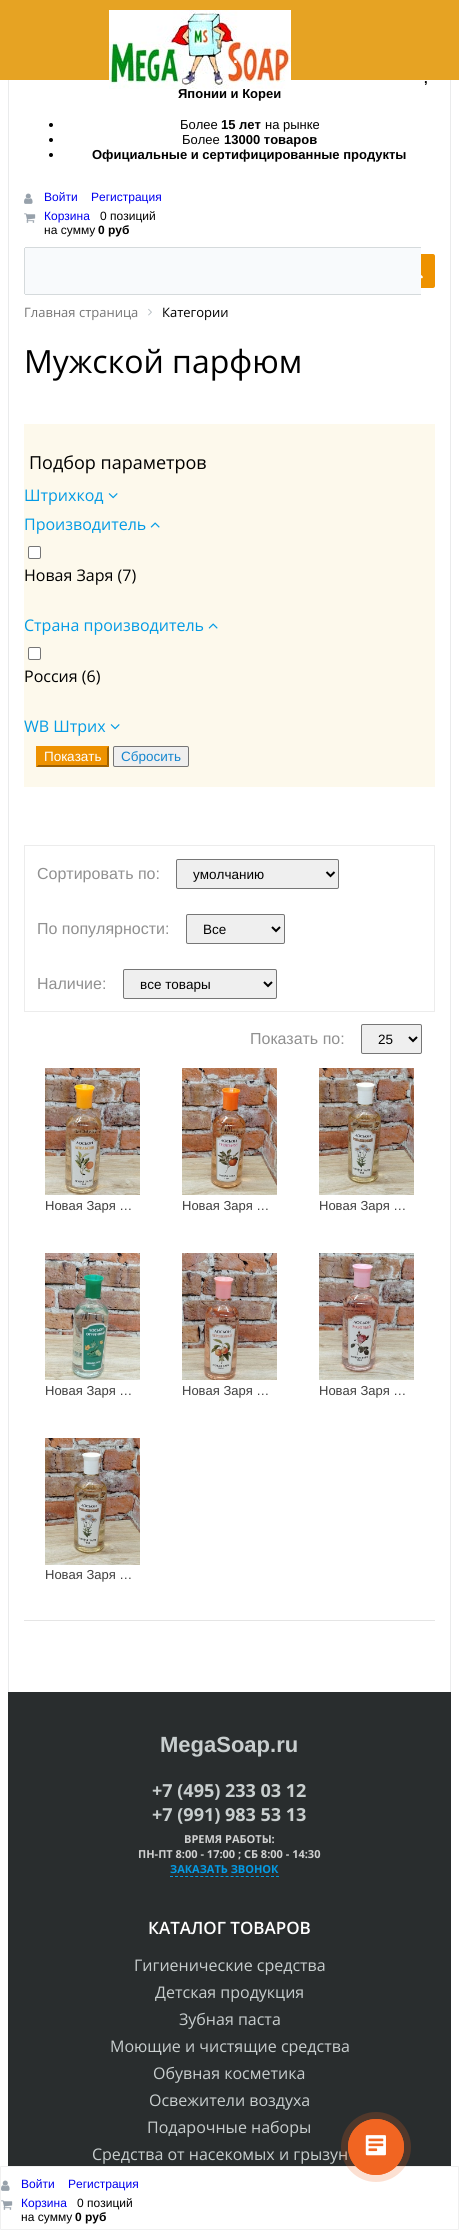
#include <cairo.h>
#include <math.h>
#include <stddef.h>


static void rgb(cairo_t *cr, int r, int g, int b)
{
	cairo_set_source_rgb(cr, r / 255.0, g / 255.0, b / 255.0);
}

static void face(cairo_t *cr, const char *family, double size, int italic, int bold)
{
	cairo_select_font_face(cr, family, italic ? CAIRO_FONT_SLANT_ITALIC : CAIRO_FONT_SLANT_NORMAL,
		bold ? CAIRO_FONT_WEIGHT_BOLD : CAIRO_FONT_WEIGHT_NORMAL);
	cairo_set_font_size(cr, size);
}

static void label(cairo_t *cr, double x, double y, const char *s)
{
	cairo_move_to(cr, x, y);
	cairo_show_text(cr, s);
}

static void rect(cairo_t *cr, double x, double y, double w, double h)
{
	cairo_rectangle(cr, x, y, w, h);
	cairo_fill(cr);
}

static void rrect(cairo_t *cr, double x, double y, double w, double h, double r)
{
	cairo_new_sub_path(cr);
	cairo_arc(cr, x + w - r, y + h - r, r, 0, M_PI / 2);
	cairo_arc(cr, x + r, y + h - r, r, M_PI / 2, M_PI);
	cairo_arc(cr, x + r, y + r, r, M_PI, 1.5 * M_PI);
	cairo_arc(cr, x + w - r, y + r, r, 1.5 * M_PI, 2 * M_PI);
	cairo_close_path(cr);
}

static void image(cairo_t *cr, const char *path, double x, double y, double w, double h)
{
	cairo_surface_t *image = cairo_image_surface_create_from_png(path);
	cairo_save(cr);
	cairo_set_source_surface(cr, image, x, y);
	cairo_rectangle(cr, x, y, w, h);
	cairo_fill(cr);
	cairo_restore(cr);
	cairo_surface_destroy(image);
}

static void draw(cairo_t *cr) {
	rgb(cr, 255, 255, 255);
	cairo_paint(cr);
	rgb(cr, 234, 235, 236);
	rect(cr, 450, 80, 1, 1612);
	rect(cr, 8, 80, 1, 1612);
	rgb(cr, 230, 163, 35);
	rect(cr, 0, 0, 459, 80);
	image(cr, "image0.png", 109, 10, 182, 79);
	face(cr, "Liberation Sans", 18, 0, 1);
	rgb(cr, 255, 255, 255);
	label(cr, 233, 63, ".");
	face(cr, "Liberation Sans", 13, 0, 1);
	rgb(cr, 0, 0, 0);
	label(cr, 424, 83, ",");
	label(cr, 178, 98, "Японии и Кореи");
	cairo_new_path(cr);
	cairo_arc(cr, 51, 125, 2, 0, 2 * M_PI);
	cairo_fill(cr);
	face(cr, "Liberation Sans", 13, 0, 0);
	label(cr, 180, 129, "Более");
	face(cr, "Liberation Sans", 13, 0, 1);
	label(cr, 221, 129, "15 лет");
	face(cr, "Liberation Sans", 13, 0, 0);
	label(cr, 265, 129, "на рынке");
	cairo_new_path(cr);
	cairo_arc(cr, 51, 140, 2, 0, 2 * M_PI);
	cairo_fill(cr);
	label(cr, 182, 144, "Более");
	face(cr, "Liberation Sans", 13, 0, 1);
	label(cr, 224, 144, "13000 товаров");
	cairo_new_path(cr);
	cairo_arc(cr, 51, 155, 2, 0, 2 * M_PI);
	cairo_fill(cr);
	label(cr, 92, 159, "Официальные и сертифицированные продукты");
	image(cr, "image1.png", 24, 193, 9, 11);
	face(cr, "Liberation Sans", 12, 0, 0);
	rgb(cr, 0, 0, 238);
	label(cr, 44, 201, "Войти");
	label(cr, 91, 201, "Регистрация");
	image(cr, "image2.png", 24, 213, 12, 10);
	label(cr, 44, 220, "Корзина");
	rgb(cr, 0, 0, 0);
	label(cr, 100, 220, "0 позиций");
	label(cr, 44, 234, "на сумму");
	face(cr, "Liberation Sans", 12, 0, 1);
	label(cr, 98, 234, "0 руб");
	rgb(cr, 238, 146, 0);
	cairo_new_path(cr);
	cairo_move_to(cr, 396, 254);
	cairo_line_to(cr, 433, 254);
	cairo_curve_to(cr, 434, 254, 435, 255, 435, 256);
	cairo_line_to(cr, 435, 286);
	cairo_curve_to(cr, 435, 287, 434, 288, 433, 288);
	cairo_line_to(cr, 396, 288);
	cairo_close_path(cr);
	cairo_fill(cr);
	rgb(cr, 248, 250, 252);
	cairo_new_path(cr);
	cairo_move_to(cr, 26, 247);
	cairo_line_to(cr, 421, 247);
	cairo_line_to(cr, 421, 295);
	cairo_line_to(cr, 26, 295);
	cairo_curve_to(cr, 25, 295, 24, 294, 24, 293);
	cairo_line_to(cr, 24, 249);
	cairo_curve_to(cr, 24, 248, 25, 247, 26, 247);
	cairo_close_path(cr);
	cairo_fill(cr);
	rgb(cr, 213, 218, 220);
	rect(cr, 25, 247, 396, 1);
	rect(cr, 25, 294, 396, 1);
	rect(cr, 24, 248, 1, 46);
	image(cr, "image3.png", 421, 275, 2, 4);
	face(cr, "Open Sans", 13, 0, 0);
	rgb(cr, 117, 117, 117);
	label(cr, 24, 317, "Главная страница");
	image(cr, "image4.png", 148, 308, 4, 8);
	rgb(cr, 0, 0, 0);
	label(cr, 162, 317, "Категории");
	face(cr, "Open Sans", 32, 0, 0);
	label(cr, 24, 373, "Мужской парфюм");
	rgb(cr, 253, 249, 236);
	rect(cr, 24, 424, 411, 363);
	face(cr, "Open Sans", 18, 0, 0);
	rgb(cr, 0, 0, 0);
	label(cr, 29, 469, "Подбор параметров");
	face(cr, "Open Sans", 16, 0, 0);
	rgb(cr, 3, 155, 229);
	label(cr, 24, 501, "Штрихкод");
	image(cr, "image5.png", 108, 493, 10, 6);
	label(cr, 24, 530, "Производитель");
	image(cr, "image6.png", 150, 522, 10, 6);
	rgb(cr, 255, 255, 255);
	rrect(cr, 28.5, 546.5, 12, 12, 1.5);
	cairo_fill_preserve(cr);
	rgb(cr, 118, 118, 118);
	cairo_set_line_width(cr, 1);
	cairo_stroke(cr);
	rgb(cr, 0, 0, 0);
	label(cr, 24, 581, "Новая Заря (7)");
	rgb(cr, 3, 155, 229);
	label(cr, 24, 631, "Страна производитель");
	image(cr, "image6.png", 208, 623, 10, 6);
	rgb(cr, 255, 255, 255);
	rrect(cr, 28.5, 647.5, 12, 12, 1.5);
	cairo_fill_preserve(cr);
	rgb(cr, 118, 118, 118);
	cairo_stroke(cr);
	rgb(cr, 0, 0, 0);
	label(cr, 24, 682, "Россия (6)");
	rgb(cr, 3, 155, 229);
	label(cr, 24, 732, "WB Штрих");
	image(cr, "image5.png", 110, 724, 10, 6);
	rgb(cr, 238, 146, 0);
	rect(cr, 36, 746, 73, 21);
	rgb(cr, 159, 97, 0);
	cairo_new_path(cr);
	cairo_move_to(cr, 109, 746);
	cairo_line_to(cr, 109, 767);
	cairo_line_to(cr, 107, 765);
	cairo_line_to(cr, 107, 748);
	cairo_close_path(cr);
	cairo_fill(cr);
	cairo_new_path(cr);
	cairo_move_to(cr, 109, 767);
	cairo_line_to(cr, 36, 767);
	cairo_line_to(cr, 38, 765);
	cairo_line_to(cr, 107, 765);
	cairo_close_path(cr);
	cairo_fill(cr);
	rgb(cr, 238, 146, 0);
	cairo_new_path(cr);
	cairo_move_to(cr, 36, 767);
	cairo_line_to(cr, 36, 746);
	cairo_line_to(cr, 38, 748);
	cairo_line_to(cr, 38, 765);
	cairo_close_path(cr);
	cairo_fill(cr);
	face(cr, "Liberation Sans", 13.5, 0, 0);
	rgb(cr, 255, 255, 255);
	label(cr, 44, 761, "Показать");
	rgb(cr, 239, 239, 239);
	rrect(cr, 113.5, 746.5, 75, 20, 1.5);
	cairo_fill_preserve(cr);
	rgb(cr, 118, 118, 118);
	cairo_stroke(cr);
	rgb(cr, 20, 133, 206);
	label(cr, 121, 761, "Сбросить");
	cairo_rectangle(cr, 24.5, 845.5, 410, 166);
	rgb(cr, 236, 236, 236);
	cairo_stroke(cr);
	face(cr, "Liberation Sans", 16, 0, 0);
	rgb(cr, 144, 144, 144);
	label(cr, 37, 879, "Сортировать по:");
	rgb(cr, 239, 239, 239);
	rrect(cr, 176.5, 859.5, 162, 29, 1.5);
	cairo_fill_preserve(cr);
	rgb(cr, 118, 118, 118);
	cairo_stroke(cr);
	cairo_new_path(cr);
	cairo_move_to(cr, 326.5, 872);
	cairo_line_to(cr, 330.5, 876);
	cairo_line_to(cr, 334.5, 872);
	rgb(cr, 0, 0, 0);
	cairo_set_line_width(cr, 2);
	cairo_stroke(cr);
	face(cr, "Liberation Sans", 13.5, 0, 0);
	label(cr, 193, 879, "умолчанию");
	face(cr, "Liberation Sans", 16, 0, 0);
	rgb(cr, 144, 144, 144);
	label(cr, 37, 934, "По популярности:");
	rgb(cr, 239, 239, 239);
	rrect(cr, 186.5, 914.5, 98, 29, 1.5);
	cairo_fill_preserve(cr);
	rgb(cr, 118, 118, 118);
	cairo_set_line_width(cr, 1);
	cairo_stroke(cr);
	cairo_new_path(cr);
	cairo_move_to(cr, 272, 927);
	cairo_line_to(cr, 276, 931);
	cairo_line_to(cr, 280, 927);
	rgb(cr, 0, 0, 0);
	cairo_set_line_width(cr, 2);
	cairo_stroke(cr);
	face(cr, "Liberation Sans", 13.5, 0, 0);
	label(cr, 203, 934, "Все");
	face(cr, "Liberation Sans", 16, 0, 0);
	rgb(cr, 144, 144, 144);
	label(cr, 37, 989, "Наличие:");
	rgb(cr, 239, 239, 239);
	rrect(cr, 123.5, 969.5, 153, 29, 1.5);
	cairo_fill_preserve(cr);
	rgb(cr, 118, 118, 118);
	cairo_set_line_width(cr, 1);
	cairo_stroke(cr);
	cairo_new_path(cr);
	cairo_move_to(cr, 264, 982);
	cairo_line_to(cr, 268, 986);
	cairo_line_to(cr, 272, 982);
	rgb(cr, 0, 0, 0);
	cairo_set_line_width(cr, 2);
	cairo_stroke(cr);
	face(cr, "Liberation Sans", 13.5, 0, 0);
	label(cr, 140, 989, "все товары");
	face(cr, "Liberation Sans", 16, 0, 0);
	rgb(cr, 144, 144, 144);
	label(cr, 250, 1044, "Показать по:");
	rgb(cr, 239, 239, 239);
	rrect(cr, 361.5, 1024.5, 60, 29, 1.5);
	cairo_fill_preserve(cr);
	rgb(cr, 118, 118, 118);
	cairo_set_line_width(cr, 1);
	cairo_stroke(cr);
	cairo_new_path(cr);
	cairo_move_to(cr, 409, 1037);
	cairo_line_to(cr, 413, 1041);
	cairo_line_to(cr, 417, 1037);
	rgb(cr, 0, 0, 0);
	cairo_set_line_width(cr, 2);
	cairo_stroke(cr);
	face(cr, "Liberation Sans", 13.5, 0, 0);
	label(cr, 378, 1044, "25");
	rgb(cr, 229, 229, 229);
	rect(cr, 24, 1620, 411, 1);
	image(cr, "image7.png", 45, 1068, 95, 127);
	face(cr, "Liberation Sans", 13, 0, 0);
	rgb(cr, 63, 63, 63);
	label(cr, 45, 1210, "Новая Заря …");
	image(cr, "image8.png", 182, 1068, 95, 127);
	label(cr, 182, 1210, "Новая Заря …");
	image(cr, "image9.png", 319, 1068, 95, 127);
	label(cr, 319, 1210, "Новая Заря …");
	image(cr, "image10.png", 45, 1253, 95, 127);
	label(cr, 45, 1395, "Новая Заря …");
	image(cr, "image11.png", 182, 1253, 95, 127);
	label(cr, 182, 1395, "Новая Заря …");
	image(cr, "image12.png", 319, 1253, 95, 127);
	label(cr, 319, 1395, "Новая Заря …");
	image(cr, "image13.png", 45, 1438, 95, 127);
	label(cr, 45, 1579, "Новая Заря …");
	rgb(cr, 41, 45, 46);
	rect(cr, 8, 1692, 443, 474);
	face(cr, "Liberation Sans", 22, 0, 1);
	rgb(cr, 200, 206, 206);
	label(cr, 160, 1752, "MegaSoap.ru");
	face(cr, "Open Sans", 18, 0, 1);
	label(cr, 152, 1797, "+7 (495) 233 03 12");
	label(cr, 152, 1821, "+7 (991) 983 53 13");
	face(cr, "Open Sans", 11, 0, 1);
	rgb(cr, 207, 208, 208);
	label(cr, 184, 1843, "ВРЕМЯ РАБОТЫ:");
	label(cr, 138, 1858, "ПН-ПТ 8:00 - 17:00 ; СБ 8:00 - 14:30");
	rgb(cr, 3, 155, 229);
	label(cr, 170, 1873, "ЗАКАЗАТЬ ЗВОНОК");
	cairo_new_path(cr);
	cairo_move_to(cr, 170, 1876.5);
	cairo_line_to(cr, 279, 1876.5);
	cairo_set_line_width(cr, 1);
	cairo_set_dash(cr, (double[]){3, 2.05}, 2, 0);
	cairo_stroke(cr);
	face(cr, "Open Sans SemiBold", 17, 0, 0);
	rgb(cr, 255, 255, 255);
	label(cr, 148, 1934, "КАТАЛОГ ТОВАРОВ");
	face(cr, "Open Sans", 16, 0, 0);
	rgb(cr, 200, 206, 206);
	label(cr, 134, 1971, "Гигиенические средства");
	label(cr, 155, 1998, "Детская продукция");
	label(cr, 179, 2025, "Зубная паста");
	label(cr, 110, 2052, "Моющие и чистящие средства");
	label(cr, 153, 2079, "Обувная косметика");
	label(cr, 149, 2106, "Освежители воздуха");
	label(cr, 147, 2133, "Подарочные наборы");
	label(cr, 92, 2160, "Средства от насекомых и грызун");
	rrect(cr, 0.5, 2166.5, 458, 63, 0.5);
	rgb(cr, 240, 240, 240);
	cairo_set_dash(cr, NULL, 0, 0);
	cairo_stroke(cr);
	image(cr, "image1.png", 1, 2180, 9, 11);
	face(cr, "Liberation Sans", 12, 0, 0);
	rgb(cr, 0, 0, 238);
	label(cr, 21, 2188, "Войти");
	label(cr, 68, 2188, "Регистрация");
	image(cr, "image2.png", 1, 2200, 12, 10);
	label(cr, 21, 2207, "Корзина");
	rgb(cr, 0, 0, 0);
	label(cr, 77, 2207, "0 позиций");
	label(cr, 21, 2221, "на сумму");
	face(cr, "Liberation Sans", 12, 0, 1);
	label(cr, 75, 2221, "0 руб");
	cairo_set_source_rgba(cr, 0.945, 0.396, 0.133, 0.2);
	cairo_new_path(cr);
	cairo_arc(cr, 376, 2147, 35, 0, 2 * M_PI);
	cairo_fill(cr);
	cairo_arc(cr, 376, 2147, 27.6, 0, 2 * M_PI);
	rgb(cr, 241, 101, 34);
	cairo_set_line_width(cr, 0.8);
	cairo_stroke(cr);
	cairo_arc(cr, 376, 2147, 28, 0, 2 * M_PI);
	cairo_fill(cr);
	image(cr, "image14.png", 365, 2135, 21, 21);
}

int main(void) {
	cairo_surface_t *surface = cairo_image_surface_create(CAIRO_FORMAT_RGB24, 459, 2230);
	cairo_t *cr = cairo_create(surface);
	cairo_font_options_t *options = cairo_font_options_create();
	cairo_font_options_set_hint_metrics(options, CAIRO_HINT_METRICS_OFF);
	cairo_font_options_set_hint_style(options, CAIRO_HINT_STYLE_NONE);
	cairo_set_font_options(cr, options);
	cairo_set_miter_limit(cr, 4);
	draw(cr);
	cairo_surface_write_to_png(surface, "render.png");
	cairo_font_options_destroy(options);
	cairo_destroy(cr);
	cairo_surface_destroy(surface);
	return 0;
}
